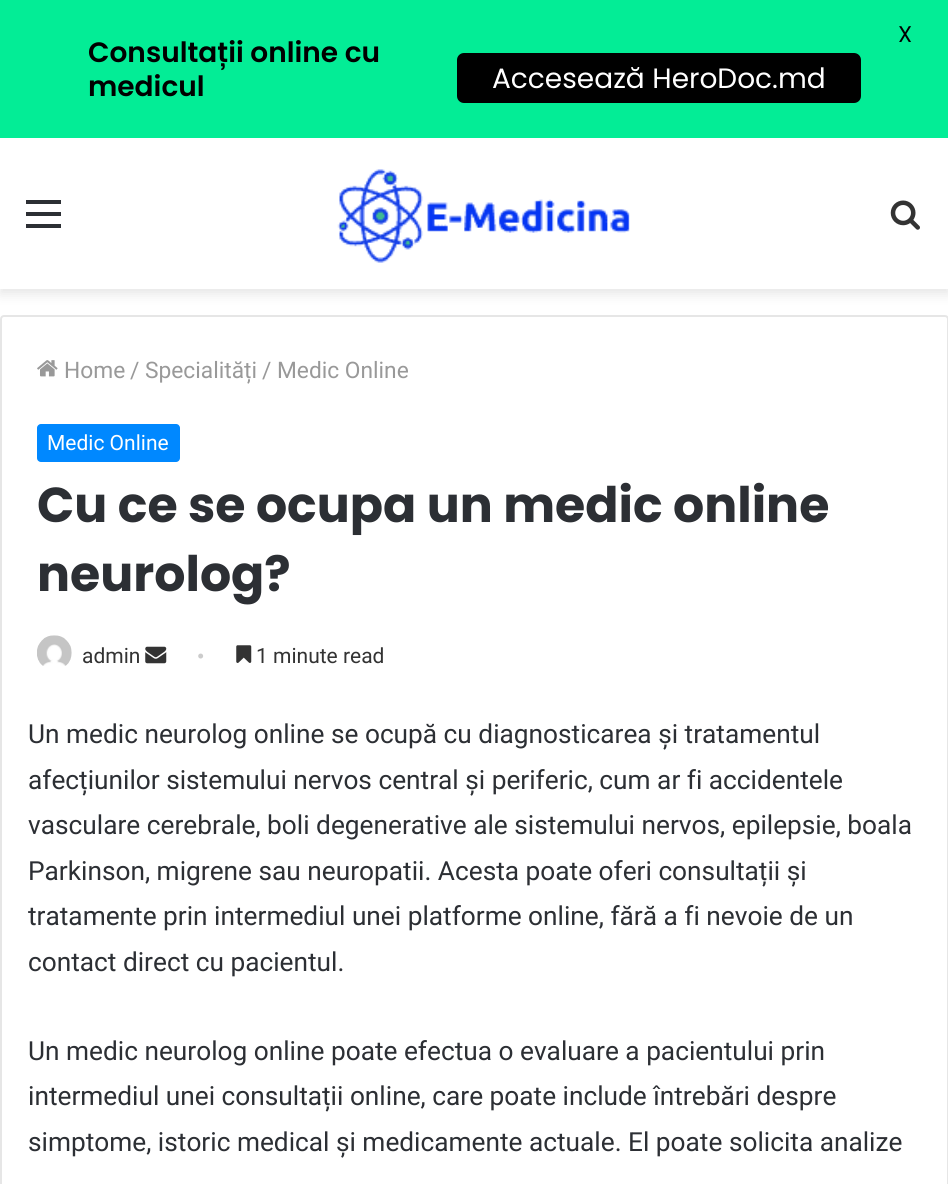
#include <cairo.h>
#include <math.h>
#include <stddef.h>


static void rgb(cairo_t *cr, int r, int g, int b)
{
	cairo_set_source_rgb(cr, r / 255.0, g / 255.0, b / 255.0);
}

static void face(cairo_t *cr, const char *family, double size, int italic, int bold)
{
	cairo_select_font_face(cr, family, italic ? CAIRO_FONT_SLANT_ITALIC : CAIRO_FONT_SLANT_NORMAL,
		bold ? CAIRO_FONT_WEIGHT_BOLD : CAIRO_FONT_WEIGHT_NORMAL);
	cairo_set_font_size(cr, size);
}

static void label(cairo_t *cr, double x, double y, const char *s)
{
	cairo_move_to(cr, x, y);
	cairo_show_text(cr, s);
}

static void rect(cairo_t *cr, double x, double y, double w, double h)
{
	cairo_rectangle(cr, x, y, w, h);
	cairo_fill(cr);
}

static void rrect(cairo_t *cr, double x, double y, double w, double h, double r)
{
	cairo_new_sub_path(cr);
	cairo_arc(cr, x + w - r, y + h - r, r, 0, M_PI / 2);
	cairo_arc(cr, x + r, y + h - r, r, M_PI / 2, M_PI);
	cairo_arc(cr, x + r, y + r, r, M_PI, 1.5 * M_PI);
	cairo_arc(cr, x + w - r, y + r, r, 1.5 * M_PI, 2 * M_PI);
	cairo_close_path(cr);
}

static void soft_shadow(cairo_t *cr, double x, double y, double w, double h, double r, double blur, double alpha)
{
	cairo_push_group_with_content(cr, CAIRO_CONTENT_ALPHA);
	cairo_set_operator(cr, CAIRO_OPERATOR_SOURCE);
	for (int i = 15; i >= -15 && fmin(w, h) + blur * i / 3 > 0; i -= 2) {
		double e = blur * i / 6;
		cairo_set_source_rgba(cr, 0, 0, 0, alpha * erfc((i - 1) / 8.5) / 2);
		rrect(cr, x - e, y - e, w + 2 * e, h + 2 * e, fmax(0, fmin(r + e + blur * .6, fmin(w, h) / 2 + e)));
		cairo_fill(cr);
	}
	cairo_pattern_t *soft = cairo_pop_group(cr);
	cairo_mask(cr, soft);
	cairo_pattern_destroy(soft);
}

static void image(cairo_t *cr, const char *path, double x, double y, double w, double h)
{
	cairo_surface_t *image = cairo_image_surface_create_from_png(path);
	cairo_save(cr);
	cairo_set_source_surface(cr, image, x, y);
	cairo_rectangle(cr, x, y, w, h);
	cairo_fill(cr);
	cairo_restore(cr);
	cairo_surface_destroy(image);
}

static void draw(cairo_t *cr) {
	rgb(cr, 255, 255, 255);
	cairo_paint(cr);
	rgb(cr, 0, 0, 0);
	soft_shadow(cr, 0, 144, 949, 150, 0, 6, 0.1);
	rgb(cr, 3, 237, 150);
	rect(cr, 0, 0, 948, 138);
	face(cr, "Poppins", 22.75, 0, 0);
	rgb(cr, 0, 0, 0);
	label(cr, 898, 42, "X");
	face(cr, "Poppins SemiBold", 28, 0, 0);
	label(cr, 88, 62, "Consultații online cu");
	label(cr, 88, 96, "medicul");
	rrect(cr, 457, 53, 404, 50, 7);
	cairo_fill(cr);
	face(cr, "Poppins", 28, 0, 0);
	rgb(cr, 255, 255, 255);
	label(cr, 492, 88, "Accesează HeroDoc.md");
	rect(cr, 0, 138, 948, 151);
	rgb(cr, 44, 47, 52);
	rect(cr, 26, 212, 35, 4);
	rect(cr, 26, 200, 35, 4);
	rect(cr, 26, 224, 35, 4);
	image(cr, "image0.png", 337, 169, 293, 94);
	image(cr, "image1.png", 890, 200, 30, 30);
	rrect(cr, 1, 316, 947, 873, 3);
	rgb(cr, 230, 230, 230);
	cairo_stroke(cr);
	image(cr, "image2.png", 37, 360, 21, 17);
	face(cr, "Roboto", 22.75, 0, 0);
	rgb(cr, 153, 153, 153);
	label(cr, 64, 378, "Home");
	label(cr, 130, 378, "/");
	label(cr, 145, 378, "Specialități");
	label(cr, 262, 378, "/");
	label(cr, 277, 378, "Medic Online");
	rgb(cr, 0, 136, 255);
	rrect(cr, 37, 424, 143, 38, 4);
	cairo_fill(cr);
	face(cr, "Roboto", 21, 0, 0);
	rgb(cr, 255, 255, 255);
	label(cr, 47, 450, "Medic Online");
	face(cr, "Poppins", 49, 0, 1);
	rgb(cr, 44, 47, 52);
	label(cr, 37, 522, "Cu ce se ocupa un medic online");
	label(cr, 37, 591, "neurolog?");
	image(cr, "image3.png", 37, 635, 35, 31);
	face(cr, "Roboto", 21, 0, 0);
	rgb(cr, 51, 51, 51);
	label(cr, 82, 663, "admin");
	image(cr, "image4.png", 145, 646, 22, 18);
	face(cr, "Liberation Serif", 21, 0, 0);
	rgb(cr, 204, 204, 204);
	label(cr, 197, 663, "•");
	image(cr, "image5.png", 236, 645, 16, 18);
	face(cr, "Roboto", 21, 0, 0);
	rgb(cr, 51, 51, 51);
	label(cr, 256, 663, "1 minute read");
	face(cr, "Roboto", 26.25, 0, 0);
	rgb(cr, 44, 47, 52);
	label(cr, 28, 743, "Un medic neurolog online se ocupă cu diagnosticarea și tratamentul");
	label(cr, 28, 789, "afecțiunilor sistemului nervos central și periferic, cum ar fi accidentele");
	label(cr, 28, 834, "vasculare cerebrale, boli degenerative ale sistemului nervos, epilepsie, boala");
	label(cr, 28, 880, "Parkinson, migrene sau neuropatii. Acesta poate oferi consultații și");
	label(cr, 28, 925, "tratamente prin intermediul unei platforme online, fără a fi nevoie de un");
	label(cr, 28, 971, "contact direct cu pacientul.");
	label(cr, 28, 1060, "Un medic neurolog online poate efectua o evaluare a pacientului prin");
	label(cr, 28, 1105, "intermediul unei consultații online, care poate include întrebări despre");
	label(cr, 28, 1151, "simptome, istoric medical și medicamente actuale. El poate solicita analize");
}

int main(void) {
	cairo_surface_t *surface = cairo_image_surface_create(CAIRO_FORMAT_RGB24, 948, 1184);
	cairo_t *cr = cairo_create(surface);
	cairo_font_options_t *options = cairo_font_options_create();
	cairo_font_options_set_hint_metrics(options, CAIRO_HINT_METRICS_OFF);
	cairo_font_options_set_hint_style(options, CAIRO_HINT_STYLE_NONE);
	cairo_set_font_options(cr, options);
	cairo_set_miter_limit(cr, 4);
	draw(cr);
	cairo_surface_write_to_png(surface, "render.png");
	cairo_font_options_destroy(options);
	cairo_destroy(cr);
	cairo_surface_destroy(surface);
	return 0;
}
